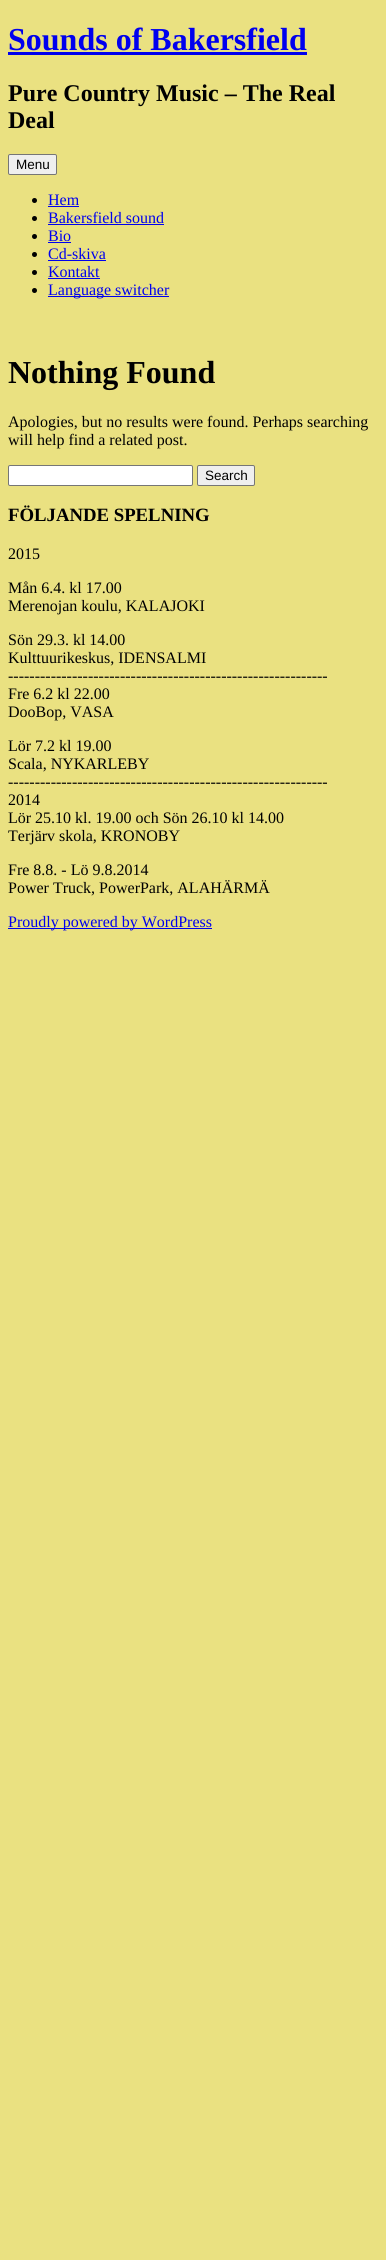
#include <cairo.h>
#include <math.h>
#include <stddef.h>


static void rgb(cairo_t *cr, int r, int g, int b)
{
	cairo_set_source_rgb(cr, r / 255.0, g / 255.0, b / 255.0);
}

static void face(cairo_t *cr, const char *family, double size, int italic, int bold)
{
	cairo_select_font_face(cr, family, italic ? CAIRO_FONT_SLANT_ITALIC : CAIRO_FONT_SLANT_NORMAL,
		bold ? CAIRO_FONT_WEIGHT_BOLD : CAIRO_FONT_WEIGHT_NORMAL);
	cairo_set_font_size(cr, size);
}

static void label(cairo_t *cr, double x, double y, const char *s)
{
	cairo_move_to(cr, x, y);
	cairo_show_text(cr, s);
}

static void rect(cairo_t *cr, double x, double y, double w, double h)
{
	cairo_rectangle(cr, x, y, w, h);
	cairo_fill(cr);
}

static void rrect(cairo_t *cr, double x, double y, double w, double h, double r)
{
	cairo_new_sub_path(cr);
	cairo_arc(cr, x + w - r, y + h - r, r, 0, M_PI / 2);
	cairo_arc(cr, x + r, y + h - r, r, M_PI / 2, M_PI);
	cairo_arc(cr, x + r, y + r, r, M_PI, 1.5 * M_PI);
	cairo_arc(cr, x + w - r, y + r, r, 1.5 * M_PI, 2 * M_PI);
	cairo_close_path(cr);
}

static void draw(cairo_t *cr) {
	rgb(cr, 234, 225, 129);
	cairo_paint(cr);
	face(cr, "Liberation Serif", 32, 0, 1);
	rgb(cr, 0, 0, 238);
	label(cr, 8, 50, "Sounds of Bakersfield");
	rect(cr, 8, 52, 299, 3);
	face(cr, "Liberation Serif", 24, 0, 1);
	rgb(cr, 0, 0, 0);
	label(cr, 8, 101, "Pure Country Music – The Real");
	label(cr, 8, 128, "Deal");
	rgb(cr, 239, 239, 239);
	rrect(cr, 8.5, 154.5, 48, 20, 1.5);
	cairo_fill_preserve(cr);
	rgb(cr, 118, 118, 118);
	cairo_set_line_width(cr, 1);
	cairo_stroke(cr);
	face(cr, "Liberation Sans", 13.5, 0, 0);
	rgb(cr, 0, 0, 0);
	label(cr, 16, 169, "Menu");
	cairo_new_path(cr);
	cairo_arc(cr, 34.5, 200.5, 2.5, 0, 2 * M_PI);
	cairo_fill(cr);
	face(cr, "Liberation Serif", 16, 0, 0);
	rgb(cr, 0, 0, 238);
	label(cr, 48, 205, "Hem");
	rect(cr, 48, 206, 31, 1);
	rgb(cr, 0, 0, 0);
	cairo_new_path(cr);
	cairo_arc(cr, 34.5, 218.5, 2.5, 0, 2 * M_PI);
	cairo_fill(cr);
	rgb(cr, 0, 0, 238);
	label(cr, 48, 223, "Bakersfield sound");
	rect(cr, 48, 224, 116, 1);
	rgb(cr, 0, 0, 0);
	cairo_new_path(cr);
	cairo_arc(cr, 34.5, 236.5, 2.5, 0, 2 * M_PI);
	cairo_fill(cr);
	rgb(cr, 0, 0, 238);
	label(cr, 48, 241, "Bio");
	rect(cr, 48, 242, 23, 1);
	rgb(cr, 0, 0, 0);
	cairo_new_path(cr);
	cairo_arc(cr, 34.5, 254.5, 2.5, 0, 2 * M_PI);
	cairo_fill(cr);
	rgb(cr, 0, 0, 238);
	label(cr, 48, 259, "Cd-skiva");
	rect(cr, 48, 260, 58, 1);
	rgb(cr, 0, 0, 0);
	cairo_new_path(cr);
	cairo_arc(cr, 34.5, 272.5, 2.5, 0, 2 * M_PI);
	cairo_fill(cr);
	rgb(cr, 0, 0, 238);
	label(cr, 48, 277, "Kontakt");
	rect(cr, 48, 278, 52, 1);
	rgb(cr, 0, 0, 0);
	cairo_new_path(cr);
	cairo_arc(cr, 34.5, 290.5, 2.5, 0, 2 * M_PI);
	cairo_fill(cr);
	rgb(cr, 0, 0, 238);
	rect(cr, 48, 296, 121, 1);
	label(cr, 48, 295, "Language switcher");
	face(cr, "Liberation Serif", 32, 0, 1);
	rgb(cr, 0, 0, 0);
	label(cr, 8, 383, "Nothing Found");
	face(cr, "Liberation Serif", 16, 0, 0);
	label(cr, 8, 427, "Apologies, but no results were found. Perhaps searching");
	label(cr, 8, 445, "will help find a related post.");
	rgb(cr, 255, 255, 255);
	rrect(cr, 8.5, 465.5, 184, 20, 1.5);
	cairo_fill_preserve(cr);
	rgb(cr, 118, 118, 118);
	cairo_stroke(cr);
	rgb(cr, 239, 239, 239);
	rrect(cr, 197.5, 465.5, 57, 20, 1.5);
	cairo_fill_preserve(cr);
	rgb(cr, 118, 118, 118);
	cairo_stroke(cr);
	face(cr, "Liberation Sans", 13.5, 0, 0);
	rgb(cr, 0, 0, 0);
	label(cr, 205, 480, "Search");
	face(cr, "Liberation Serif", 18.75, 0, 1);
	label(cr, 8, 521, "FÖLJANDE SPELNING");
	face(cr, "Liberation Serif", 16, 0, 0);
	label(cr, 8, 559, "2015");
	label(cr, 8, 593, "Mån 6.4. kl 17.00");
	label(cr, 8, 611, "Merenojan koulu, KALAJOKI");
	label(cr, 8, 645, "Sön 29.3. kl 14.00");
	label(cr, 8, 663, "Kulttuurikeskus, IDENSALMI");
	label(cr, 8, 681, "------------------------------------------------------------");
	label(cr, 8, 699, "Fre 6.2 kl 22.00");
	label(cr, 8, 717, "DooBop, VASA");
	label(cr, 8, 751, "Lör 7.2 kl 19.00");
	label(cr, 8, 769, "Scala, NYKARLEBY");
	label(cr, 8, 787, "------------------------------------------------------------");
	label(cr, 8, 805, "2014");
	label(cr, 8, 823, "Lör 25.10 kl. 19.00 och Sön 26.10 kl 14.00");
	label(cr, 8, 841, "Terjärv skola, KRONOBY");
	label(cr, 8, 875, "Fre 8.8. - Lö 9.8.2014");
	label(cr, 8, 893, "Power Truck, PowerPark, ALAHÄRMÄ");
	rgb(cr, 0, 0, 238);
	rect(cr, 8, 928, 204, 1);
	label(cr, 8, 927, "Proudly powered by WordPress");
}

int main(void) {
	cairo_surface_t *surface = cairo_image_surface_create(CAIRO_FORMAT_RGB24, 386, 2260);
	cairo_t *cr = cairo_create(surface);
	cairo_font_options_t *options = cairo_font_options_create();
	cairo_font_options_set_hint_metrics(options, CAIRO_HINT_METRICS_OFF);
	cairo_font_options_set_hint_style(options, CAIRO_HINT_STYLE_NONE);
	cairo_set_font_options(cr, options);
	cairo_set_miter_limit(cr, 4);
	draw(cr);
	cairo_surface_write_to_png(surface, "render.png");
	cairo_font_options_destroy(options);
	cairo_destroy(cr);
	cairo_surface_destroy(surface);
	return 0;
}
